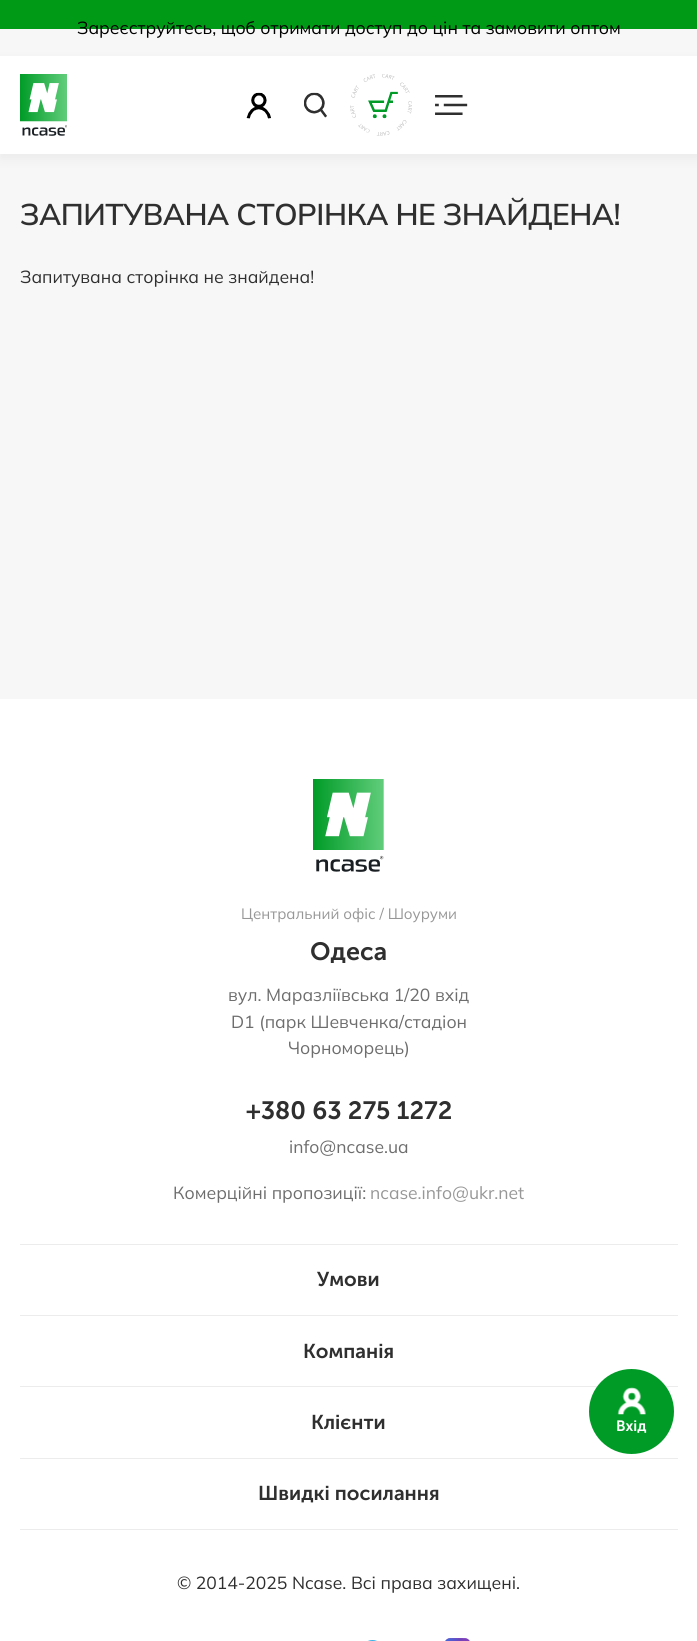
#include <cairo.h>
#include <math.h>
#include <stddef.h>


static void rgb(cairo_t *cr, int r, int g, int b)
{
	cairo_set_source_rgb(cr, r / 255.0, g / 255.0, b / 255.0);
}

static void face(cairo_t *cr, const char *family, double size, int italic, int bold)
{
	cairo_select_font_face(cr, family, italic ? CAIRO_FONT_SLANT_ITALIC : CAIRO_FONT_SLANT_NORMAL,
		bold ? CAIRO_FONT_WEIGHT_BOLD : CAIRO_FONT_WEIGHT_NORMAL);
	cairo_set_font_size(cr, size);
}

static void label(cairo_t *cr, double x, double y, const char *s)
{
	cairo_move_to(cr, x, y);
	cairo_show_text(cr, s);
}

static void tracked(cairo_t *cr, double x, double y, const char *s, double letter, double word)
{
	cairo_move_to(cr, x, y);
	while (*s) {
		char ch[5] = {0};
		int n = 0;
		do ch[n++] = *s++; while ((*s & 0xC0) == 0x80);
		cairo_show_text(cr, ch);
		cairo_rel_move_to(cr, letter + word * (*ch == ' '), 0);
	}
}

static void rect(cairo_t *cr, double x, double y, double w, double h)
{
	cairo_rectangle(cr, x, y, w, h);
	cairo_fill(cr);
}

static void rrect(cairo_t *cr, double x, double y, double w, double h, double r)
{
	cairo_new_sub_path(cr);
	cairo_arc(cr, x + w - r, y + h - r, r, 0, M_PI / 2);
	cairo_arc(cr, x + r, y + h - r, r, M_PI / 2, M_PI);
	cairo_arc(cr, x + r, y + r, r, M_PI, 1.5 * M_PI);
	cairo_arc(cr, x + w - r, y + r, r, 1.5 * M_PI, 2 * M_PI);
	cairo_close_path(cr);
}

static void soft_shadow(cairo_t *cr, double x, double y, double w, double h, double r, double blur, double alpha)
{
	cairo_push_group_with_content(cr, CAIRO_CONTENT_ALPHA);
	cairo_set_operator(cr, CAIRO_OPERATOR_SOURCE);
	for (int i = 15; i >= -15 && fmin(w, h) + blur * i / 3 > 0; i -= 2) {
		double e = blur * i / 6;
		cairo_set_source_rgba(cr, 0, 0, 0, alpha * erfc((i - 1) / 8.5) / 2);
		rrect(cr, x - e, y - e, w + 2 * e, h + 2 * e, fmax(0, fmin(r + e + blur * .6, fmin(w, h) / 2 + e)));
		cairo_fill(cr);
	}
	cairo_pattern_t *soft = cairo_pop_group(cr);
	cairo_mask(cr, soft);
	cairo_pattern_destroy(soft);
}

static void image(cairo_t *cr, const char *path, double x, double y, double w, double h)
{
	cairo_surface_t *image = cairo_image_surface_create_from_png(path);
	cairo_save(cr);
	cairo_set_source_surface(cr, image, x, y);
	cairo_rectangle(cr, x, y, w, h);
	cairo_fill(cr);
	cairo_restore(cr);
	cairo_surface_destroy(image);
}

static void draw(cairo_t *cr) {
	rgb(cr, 247, 247, 247);
	cairo_paint(cr);
	rgb(cr, 0, 154, 23);
	rect(cr, 0, 0, 697, 29);
	face(cr, "Mulish", 17.5, 0, 0);
	rgb(cr, 0, 0, 0);
	label(cr, 77, 34, "Зареєструйтесь, щоб отримати доступ до цін та замовити оптом");
	rgb(cr, 0, 0, 0);
	soft_shadow(cr, 0, 61, 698, 98, 0, 6, 0.05);
	rgb(cr, 255, 255, 255);
	rect(cr, 0, 56, 697, 98);
	image(cr, "image0.png", 20, 74, 47, 62);
	image(cr, "image1.png", 246, 92, 25, 27);
	image(cr, "image2.png", 304, 92, 23, 26);
	image(cr, "image3.png", 350, 74, 62, 62);
	image(cr, "image4.png", 368, 91, 30, 28);
	image(cr, "image5.png", 435, 95, 33, 20);
	face(cr, "Mulish SemiBold", 30, 0, 0);
	rgb(cr, 47, 47, 47);
	tracked(cr, 20, 225, "ЗАПИТУВАНА СТОРІНКА НЕ ЗНАЙДЕНА!", -0.5, 0);
	face(cr, "Mulish", 17.5, 0, 0);
	label(cr, 20, 283, "Запитувана сторінка не знайдена!");
	rgb(cr, 255, 255, 255);
	rect(cr, 0, 699, 697, 942);
	image(cr, "image6.png", 313, 779, 71, 93);
	face(cr, "Mulish", 15, 0, 0);
	rgb(cr, 151, 151, 151);
	label(cr, 241, 919, "Центральний офіс / Шоуруми");
	face(cr, "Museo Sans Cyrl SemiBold", 25, 0, 0);
	rgb(cr, 47, 47, 47);
	label(cr, 310, 960, "Одеса");
	face(cr, "Mulish", 17.5, 0, 0);
	rgb(cr, 109, 109, 109);
	label(cr, 228, 1001, "вул. Маразліївська 1/20 вхід");
	label(cr, 231, 1028, "D1 (парк Шевченка/стадіон");
	label(cr, 288, 1054, "Чорноморець)");
	face(cr, "Museo Sans Cyrl SemiBold", 25, 0, 0);
	rgb(cr, 47, 47, 47);
	label(cr, 246, 1119, "+380 63 275 1272");
	face(cr, "Mulish", 17.5, 0, 0);
	rgb(cr, 109, 109, 109);
	label(cr, 289, 1153, "info@ncase.ua");
	label(cr, 173, 1199, "Комерційні пропозиції:");
	rgb(cr, 151, 151, 151);
	label(cr, 370, 1199, "ncase.info@ukr.net");
	rgb(cr, 236, 236, 236);
	rect(cr, 20, 1244, 658, 1);
	face(cr, "Museo Sans Cyrl SemiBold", 20, 0, 0);
	rgb(cr, 47, 47, 47);
	label(cr, 317, 1286, "Умови");
	rgb(cr, 236, 236, 236);
	rect(cr, 20, 1315, 658, 1);
	rgb(cr, 47, 47, 47);
	label(cr, 303, 1358, "Компанія");
	rgb(cr, 236, 236, 236);
	rect(cr, 20, 1386, 658, 1);
	rgb(cr, 47, 47, 47);
	label(cr, 311, 1429, "Клієнти");
	rgb(cr, 236, 236, 236);
	rect(cr, 20, 1458, 658, 1);
	rgb(cr, 47, 47, 47);
	label(cr, 258, 1500, "Швидкі посилання");
	rgb(cr, 236, 236, 236);
	rect(cr, 20, 1529, 658, 1);
	face(cr, "Mulish", 17.5, 0, 0);
	rgb(cr, 47, 47, 47);
	label(cr, 177, 1589, "© 2014-2025 Ncase. Всі права захищені.");
	image(cr, "image7.png", 368, 1640, 9, 1);
	image(cr, "image8.png", 445, 1638, 25, 3);
	rgb(cr, 0, 155, 39);
	cairo_arc(cr, 631.5, 1411.5, 42.5, 0, 2 * M_PI);
	cairo_fill(cr);
	image(cr, "image9.png", 617, 1387, 29, 28);
	face(cr, "Museo Sans Cyrl SemiBold", 15, 0, 0);
	rgb(cr, 255, 255, 255);
	label(cr, 616, 1431, "Вхід");
}

int main(void) {
	cairo_surface_t *surface = cairo_image_surface_create(CAIRO_FORMAT_RGB24, 697, 1641);
	cairo_t *cr = cairo_create(surface);
	cairo_font_options_t *options = cairo_font_options_create();
	cairo_font_options_set_hint_metrics(options, CAIRO_HINT_METRICS_OFF);
	cairo_font_options_set_hint_style(options, CAIRO_HINT_STYLE_NONE);
	cairo_set_font_options(cr, options);
	cairo_set_miter_limit(cr, 4);
	draw(cr);
	cairo_surface_write_to_png(surface, "render.png");
	cairo_font_options_destroy(options);
	cairo_destroy(cr);
	cairo_surface_destroy(surface);
	return 0;
}
